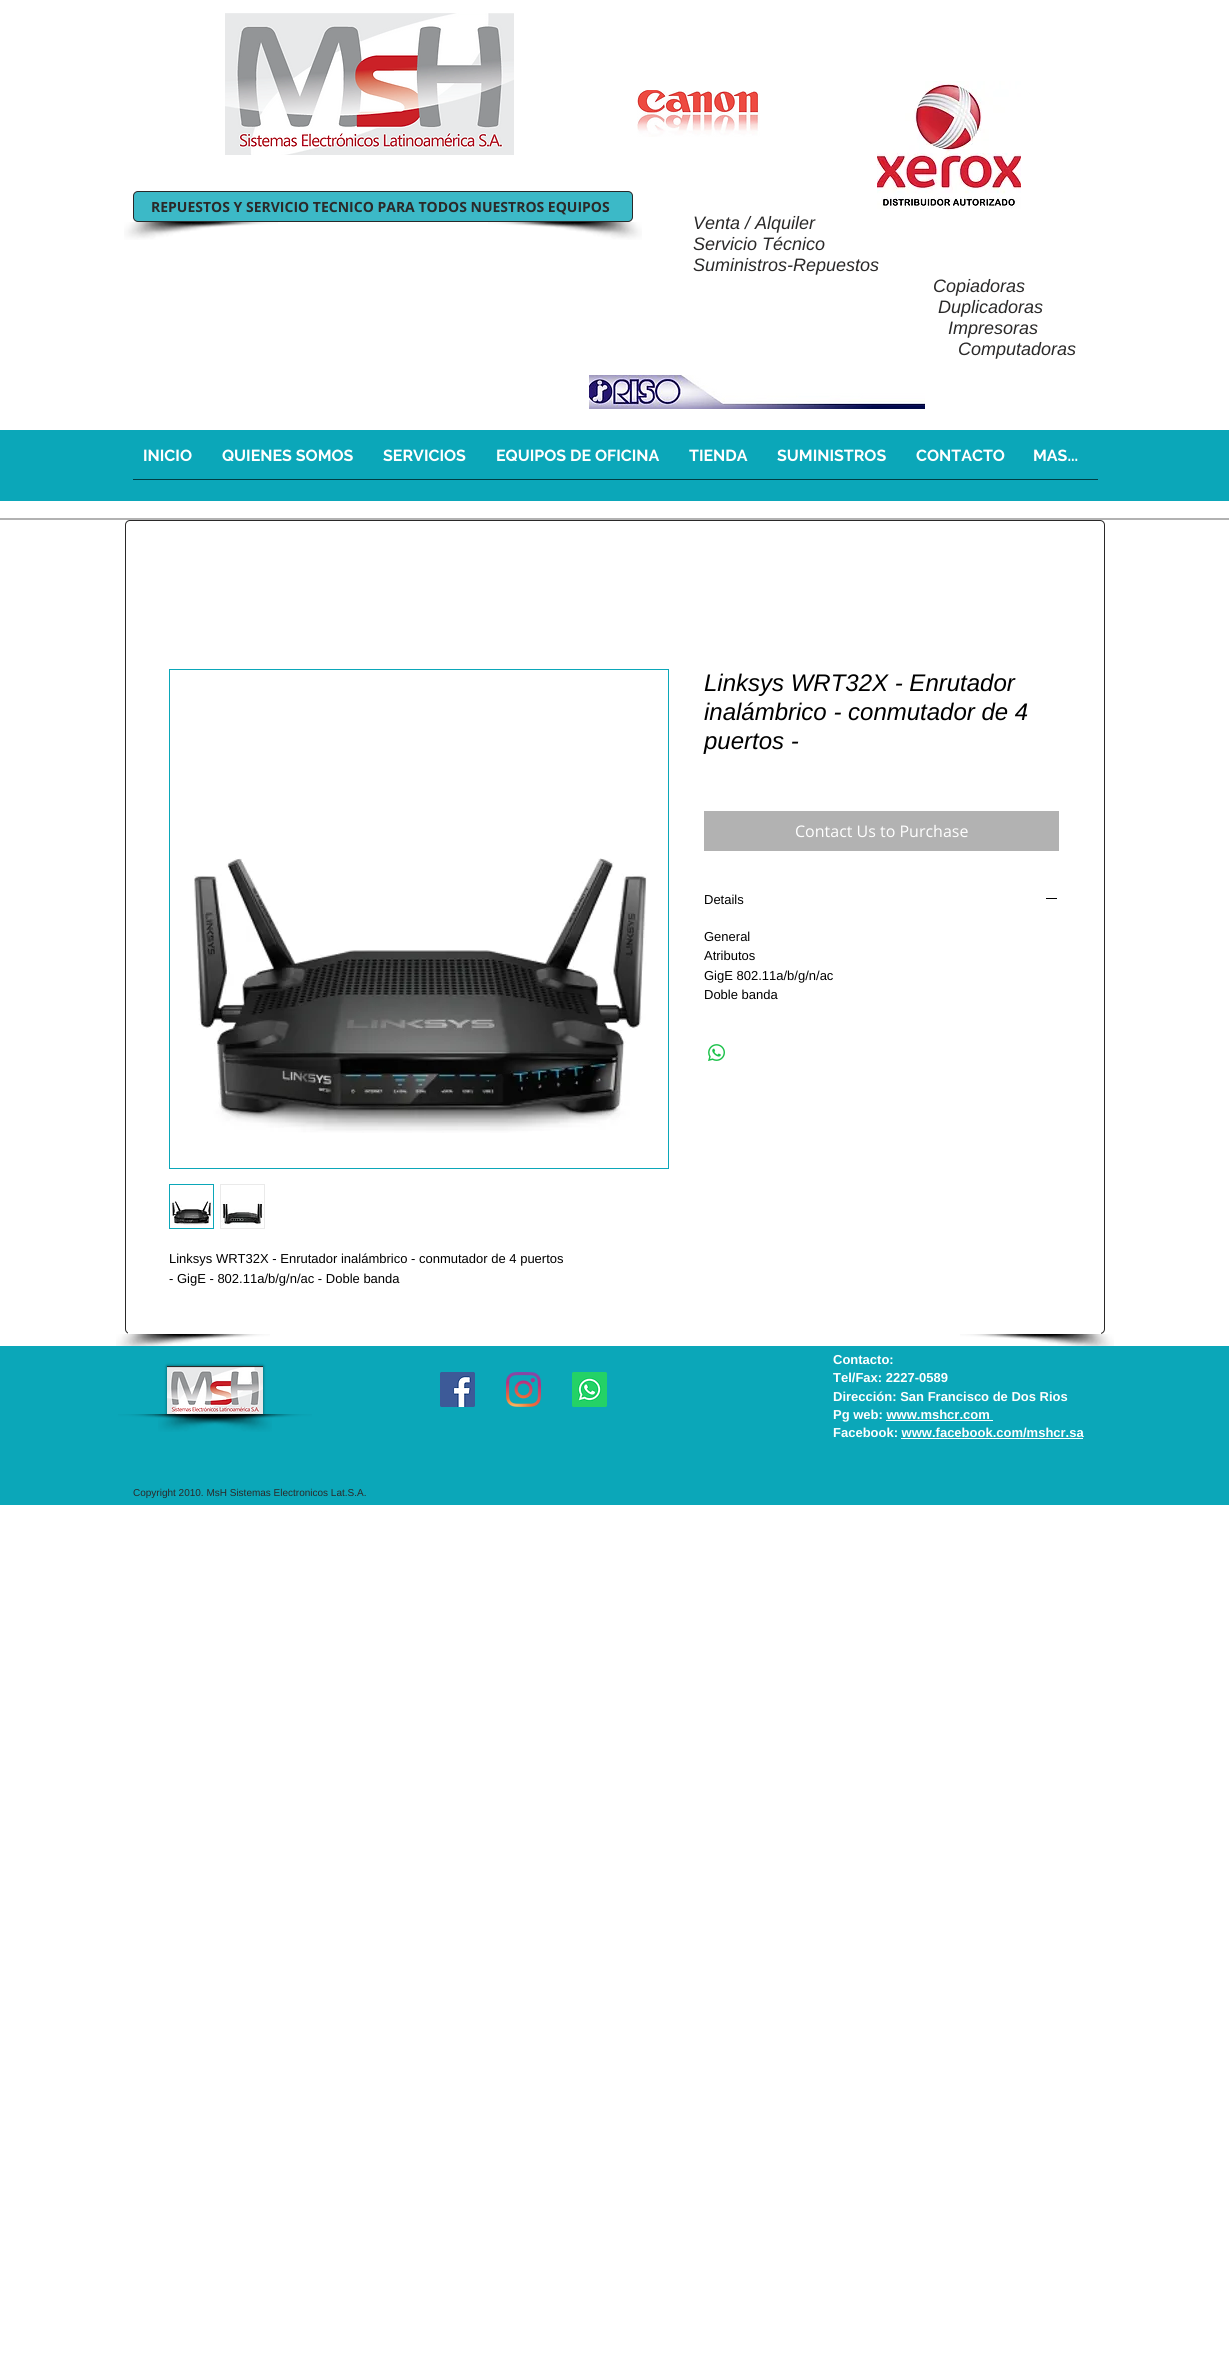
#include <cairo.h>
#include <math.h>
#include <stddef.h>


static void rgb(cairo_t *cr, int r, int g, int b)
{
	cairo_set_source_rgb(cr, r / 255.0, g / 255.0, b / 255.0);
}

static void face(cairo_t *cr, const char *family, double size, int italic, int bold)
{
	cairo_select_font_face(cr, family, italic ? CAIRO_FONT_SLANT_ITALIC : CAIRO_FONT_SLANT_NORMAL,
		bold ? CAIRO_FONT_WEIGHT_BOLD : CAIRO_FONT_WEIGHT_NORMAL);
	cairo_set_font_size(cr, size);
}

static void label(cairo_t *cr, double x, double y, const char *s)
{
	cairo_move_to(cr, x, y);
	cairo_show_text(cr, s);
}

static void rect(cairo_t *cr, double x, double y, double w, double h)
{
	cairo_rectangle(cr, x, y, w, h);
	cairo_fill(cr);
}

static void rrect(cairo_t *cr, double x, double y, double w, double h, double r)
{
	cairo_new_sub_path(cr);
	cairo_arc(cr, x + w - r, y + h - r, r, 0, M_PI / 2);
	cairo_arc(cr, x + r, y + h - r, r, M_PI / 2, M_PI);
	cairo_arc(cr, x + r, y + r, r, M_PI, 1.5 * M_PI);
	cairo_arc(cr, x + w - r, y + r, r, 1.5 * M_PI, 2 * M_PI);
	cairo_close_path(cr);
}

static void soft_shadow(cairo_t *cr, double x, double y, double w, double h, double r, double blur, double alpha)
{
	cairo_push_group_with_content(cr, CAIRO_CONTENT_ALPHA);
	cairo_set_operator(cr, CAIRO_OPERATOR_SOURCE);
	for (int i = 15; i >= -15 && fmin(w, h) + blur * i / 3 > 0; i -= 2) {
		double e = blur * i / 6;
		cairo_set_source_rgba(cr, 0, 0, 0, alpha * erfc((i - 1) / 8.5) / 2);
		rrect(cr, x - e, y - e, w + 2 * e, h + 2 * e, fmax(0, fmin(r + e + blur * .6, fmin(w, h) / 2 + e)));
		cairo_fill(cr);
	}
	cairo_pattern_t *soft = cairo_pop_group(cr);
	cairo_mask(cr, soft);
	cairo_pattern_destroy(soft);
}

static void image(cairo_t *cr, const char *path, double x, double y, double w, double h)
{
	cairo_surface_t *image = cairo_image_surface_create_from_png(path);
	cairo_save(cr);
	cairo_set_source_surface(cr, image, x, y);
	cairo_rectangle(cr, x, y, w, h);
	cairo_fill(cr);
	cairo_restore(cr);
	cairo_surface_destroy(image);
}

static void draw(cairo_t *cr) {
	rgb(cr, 255, 255, 255);
	cairo_paint(cr);
	image(cr, "image0.png", 225, 13, 289, 142);
	image(cr, "image1.png", 637, 90, 123, 47);
	image(cr, "image2.png", 877, 81, 144, 128);
	rgb(cr, 60, 185, 199);
	rrect(cr, 133.5, 191.5, 499, 30, 4.5);
	cairo_fill_preserve(cr);
	rgb(cr, 42, 41, 41);
	cairo_set_line_width(cr, 1);
	cairo_stroke(cr);
	face(cr, "Open Sans", 14, 0, 1);
	label(cr, 151, 212, "REPUESTOS Y SERVICIO TECNICO PARA TODOS NUESTROS EQUIPOS");
	image(cr, "image3.png", 124, 222, 154, 18);
	image(cr, "image4.png", 488, 222, 154, 18);
	face(cr, "Liberation Sans", 18, 1, 0);
	label(cr, 693, 229, "Venta / Alquiler");
	label(cr, 693, 250, "Servicio Técnico");
	label(cr, 693, 271, "Suministros-Repuestos");
	label(cr, 933, 292, "Copiadoras");
	label(cr, 938, 313, "Duplicadoras");
	label(cr, 948, 334, "Impresoras");
	label(cr, 958, 355, "Computadoras");
	image(cr, "image5.png", 589, 375, 336, 34);
	rgb(cr, 11, 167, 185);
	rect(cr, 0, 430, 1229, 71);
	face(cr, "Raleway", 16, 0, 1);
	rgb(cr, 255, 255, 255);
	label(cr, 143, 461, "INICIO");
	label(cr, 222, 461, "QUIENES SOMOS");
	label(cr, 383, 461, "SERVICIOS");
	label(cr, 496, 461, "EQUIPOS DE OFICINA");
	label(cr, 689, 461, "TIENDA");
	label(cr, 777, 461, "SUMINISTROS");
	label(cr, 916, 461, "CONTACTO");
	label(cr, 1033, 461, "MAS...");
	rgb(cr, 0, 63, 68);
	rect(cr, 133, 479, 965, 1);
	rgb(cr, 178, 178, 178);
	rect(cr, 0, 518, 1229, 2);
	rrect(cr, 125.5, 520.5, 979, 813, 4.5);
	rgb(cr, 42, 41, 41);
	cairo_stroke(cr);
	image(cr, "image6.png", 116, 1334, 154, 12);
	image(cr, "image7.png", 960, 1334, 154, 12);
	rgb(cr, 255, 255, 255);
	rect(cr, 128, 1332, 973, 2);
	face(cr, "Liberation Sans", 24, 1, 0);
	rgb(cr, 0, 0, 0);
	label(cr, 704, 691, "Linksys WRT32X - Enrutador");
	label(cr, 704, 720, "inalámbrico - conmutador de 4");
	label(cr, 704, 749, "puertos -");
	rgb(cr, 178, 178, 178);
	rect(cr, 704, 811, 355, 40);
	face(cr, "Open Sans", 16, 0, 0);
	rgb(cr, 255, 255, 255);
	label(cr, 795, 837, "Contact Us to Purchase");
	face(cr, "Liberation Sans", 13, 0, 0);
	rgb(cr, 0, 0, 0);
	label(cr, 704, 904, "Details");
	rect(cr, 1046, 898, 11, 1);
	label(cr, 704, 941, "General");
	label(cr, 704, 960, "Atributos");
	label(cr, 704, 980, "GigE 802.11a/b/g/n/ac");
	label(cr, 704, 999, "Doble banda");
	image(cr, "image8.png", 708, 1044, 17, 17);
	cairo_rectangle(cr, 169.5, 669.5, 499, 499);
	rgb(cr, 11, 167, 185);
	cairo_stroke(cr);
	image(cr, "image9.png", 194, 858, 453, 275);
	cairo_rectangle(cr, 169.5, 1184.5, 44, 44);
	cairo_stroke(cr);
	image(cr, "image10.png", 170, 1185, 43, 43);
	rgb(cr, 234, 234, 234);
	rect(cr, 220, 1184, 45, 45);
	image(cr, "image11.png", 221, 1185, 43, 43);
	rgb(cr, 0, 0, 0);
	label(cr, 169, 1263, "Linksys WRT32X - Enrutador inalámbrico - conmutador de 4 puertos");
	label(cr, 169, 1283, "- GigE - 802.11a/b/g/n/ac - Doble banda");
	rgb(cr, 11, 167, 185);
	rect(cr, 0, 1346, 1229, 159);
	rgb(cr, 0, 0, 0);
	soft_shadow(cr, 167, 1366, 96, 48, 0, 1.5, 0.5);
	rgb(cr, 42, 41, 41);
	rect(cr, 167, 1366, 96, 2);
	image(cr, "image12.png", 167, 1367, 96, 47);
	image(cr, "image14.png", 158, 1414, 154, 18);
	image(cr, "image13.png", 118, 1414, 154, 18);
	image(cr, "image15.png", 440, 1372, 35, 35);
	image(cr, "image16.png", 506, 1372, 35, 35);
	image(cr, "image17.png", 572, 1372, 35, 35);
	face(cr, "Liberation Sans", 13, 0, 1);
	rgb(cr, 255, 255, 255);
	label(cr, 833, 1364, "Contacto:");
	label(cr, 833, 1382, "Tel/Fax: 2227-0589");
	label(cr, 833, 1401, "Dirección: San Francisco de Dos Rios");
	label(cr, 833, 1419, "Pg web: www.mshcr.com");
	rect(cr, 886, 1420, 107, 1);
	label(cr, 833, 1437, "Facebook: www.facebook.com/mshcr.sa");
	rect(cr, 901, 1438, 182, 1);
	face(cr, "Liberation Sans", 10, 0, 0);
	rgb(cr, 42, 41, 41);
	label(cr, 133, 1496, "Copyright 2010. MsH Sistemas Electronicos Lat.S.A.");
}

int main(void) {
	cairo_surface_t *surface = cairo_image_surface_create(CAIRO_FORMAT_RGB24, 1229, 2365);
	cairo_t *cr = cairo_create(surface);
	cairo_font_options_t *options = cairo_font_options_create();
	cairo_font_options_set_hint_metrics(options, CAIRO_HINT_METRICS_OFF);
	cairo_font_options_set_hint_style(options, CAIRO_HINT_STYLE_NONE);
	cairo_set_font_options(cr, options);
	cairo_set_miter_limit(cr, 4);
	draw(cr);
	cairo_surface_write_to_png(surface, "render.png");
	cairo_font_options_destroy(options);
	cairo_destroy(cr);
	cairo_surface_destroy(surface);
	return 0;
}
